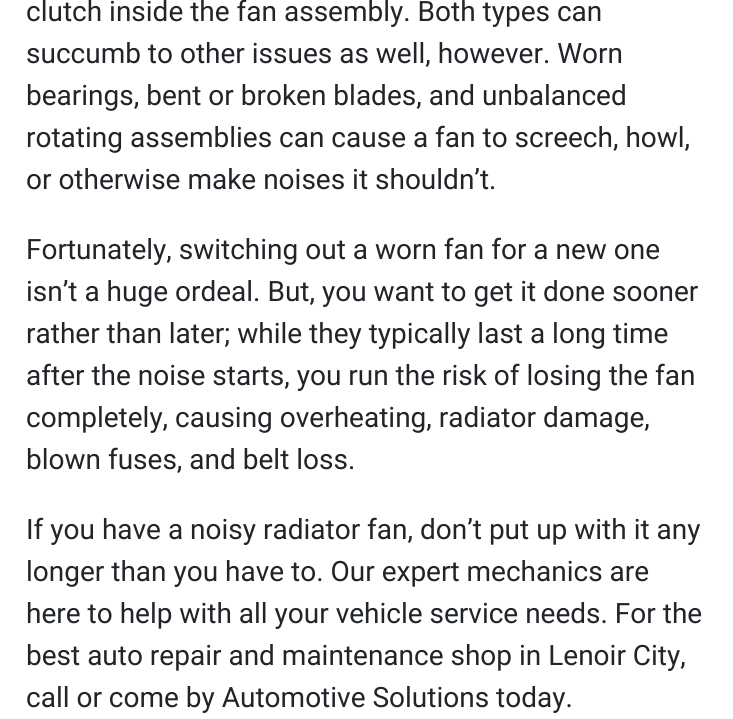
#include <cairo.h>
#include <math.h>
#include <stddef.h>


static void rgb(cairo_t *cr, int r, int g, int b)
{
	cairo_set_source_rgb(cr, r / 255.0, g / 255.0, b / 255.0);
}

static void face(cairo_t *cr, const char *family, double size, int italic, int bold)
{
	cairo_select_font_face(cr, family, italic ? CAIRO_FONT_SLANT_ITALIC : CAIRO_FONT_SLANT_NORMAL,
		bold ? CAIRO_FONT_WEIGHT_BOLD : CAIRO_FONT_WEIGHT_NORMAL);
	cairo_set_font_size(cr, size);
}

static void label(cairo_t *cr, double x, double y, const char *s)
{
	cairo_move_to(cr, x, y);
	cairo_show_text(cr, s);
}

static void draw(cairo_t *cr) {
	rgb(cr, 255, 255, 255);
	cairo_paint(cr);
	face(cr, "Roboto", 28, 0, 0);
	rgb(cr, 33, 37, 41);
	label(cr, 26, 21, "clutch inside the fan assembly. Both types can");
	label(cr, 26, 63, "succumb to other issues as well, however. Worn");
	label(cr, 26, 105, "bearings, bent or broken blades, and unbalanced");
	label(cr, 26, 147, "rotating assemblies can cause a fan to screech, howl,");
	label(cr, 26, 189, "or otherwise make noises it shouldn’t.");
	label(cr, 26, 259, "Fortunately, switching out a worn fan for a new one");
	label(cr, 26, 301, "isn’t a huge ordeal. But, you want to get it done sooner");
	label(cr, 26, 343, "rather than later; while they typically last a long time");
	label(cr, 26, 385, "after the noise starts, you run the risk of losing the fan");
	label(cr, 26, 427, "completely, causing overheating, radiator damage,");
	label(cr, 26, 469, "blown fuses, and belt loss.");
	label(cr, 26, 539, "If you have a noisy radiator fan, don’t put up with it any");
	label(cr, 26, 581, "longer than you have to. Our expert mechanics are");
	label(cr, 26, 623, "here to help with all your vehicle service needs. For the");
	label(cr, 26, 665, "best auto repair and maintenance shop in Lenoir City,");
	label(cr, 26, 707, "call or come by Automotive Solutions today.");
}

int main(void) {
	cairo_surface_t *surface = cairo_image_surface_create(CAIRO_FORMAT_RGB24, 733, 719);
	cairo_t *cr = cairo_create(surface);
	cairo_font_options_t *options = cairo_font_options_create();
	cairo_font_options_set_hint_metrics(options, CAIRO_HINT_METRICS_OFF);
	cairo_font_options_set_hint_style(options, CAIRO_HINT_STYLE_NONE);
	cairo_set_font_options(cr, options);
	cairo_set_miter_limit(cr, 4);
	draw(cr);
	cairo_surface_write_to_png(surface, "render.png");
	cairo_font_options_destroy(options);
	cairo_destroy(cr);
	cairo_surface_destroy(surface);
	return 0;
}
